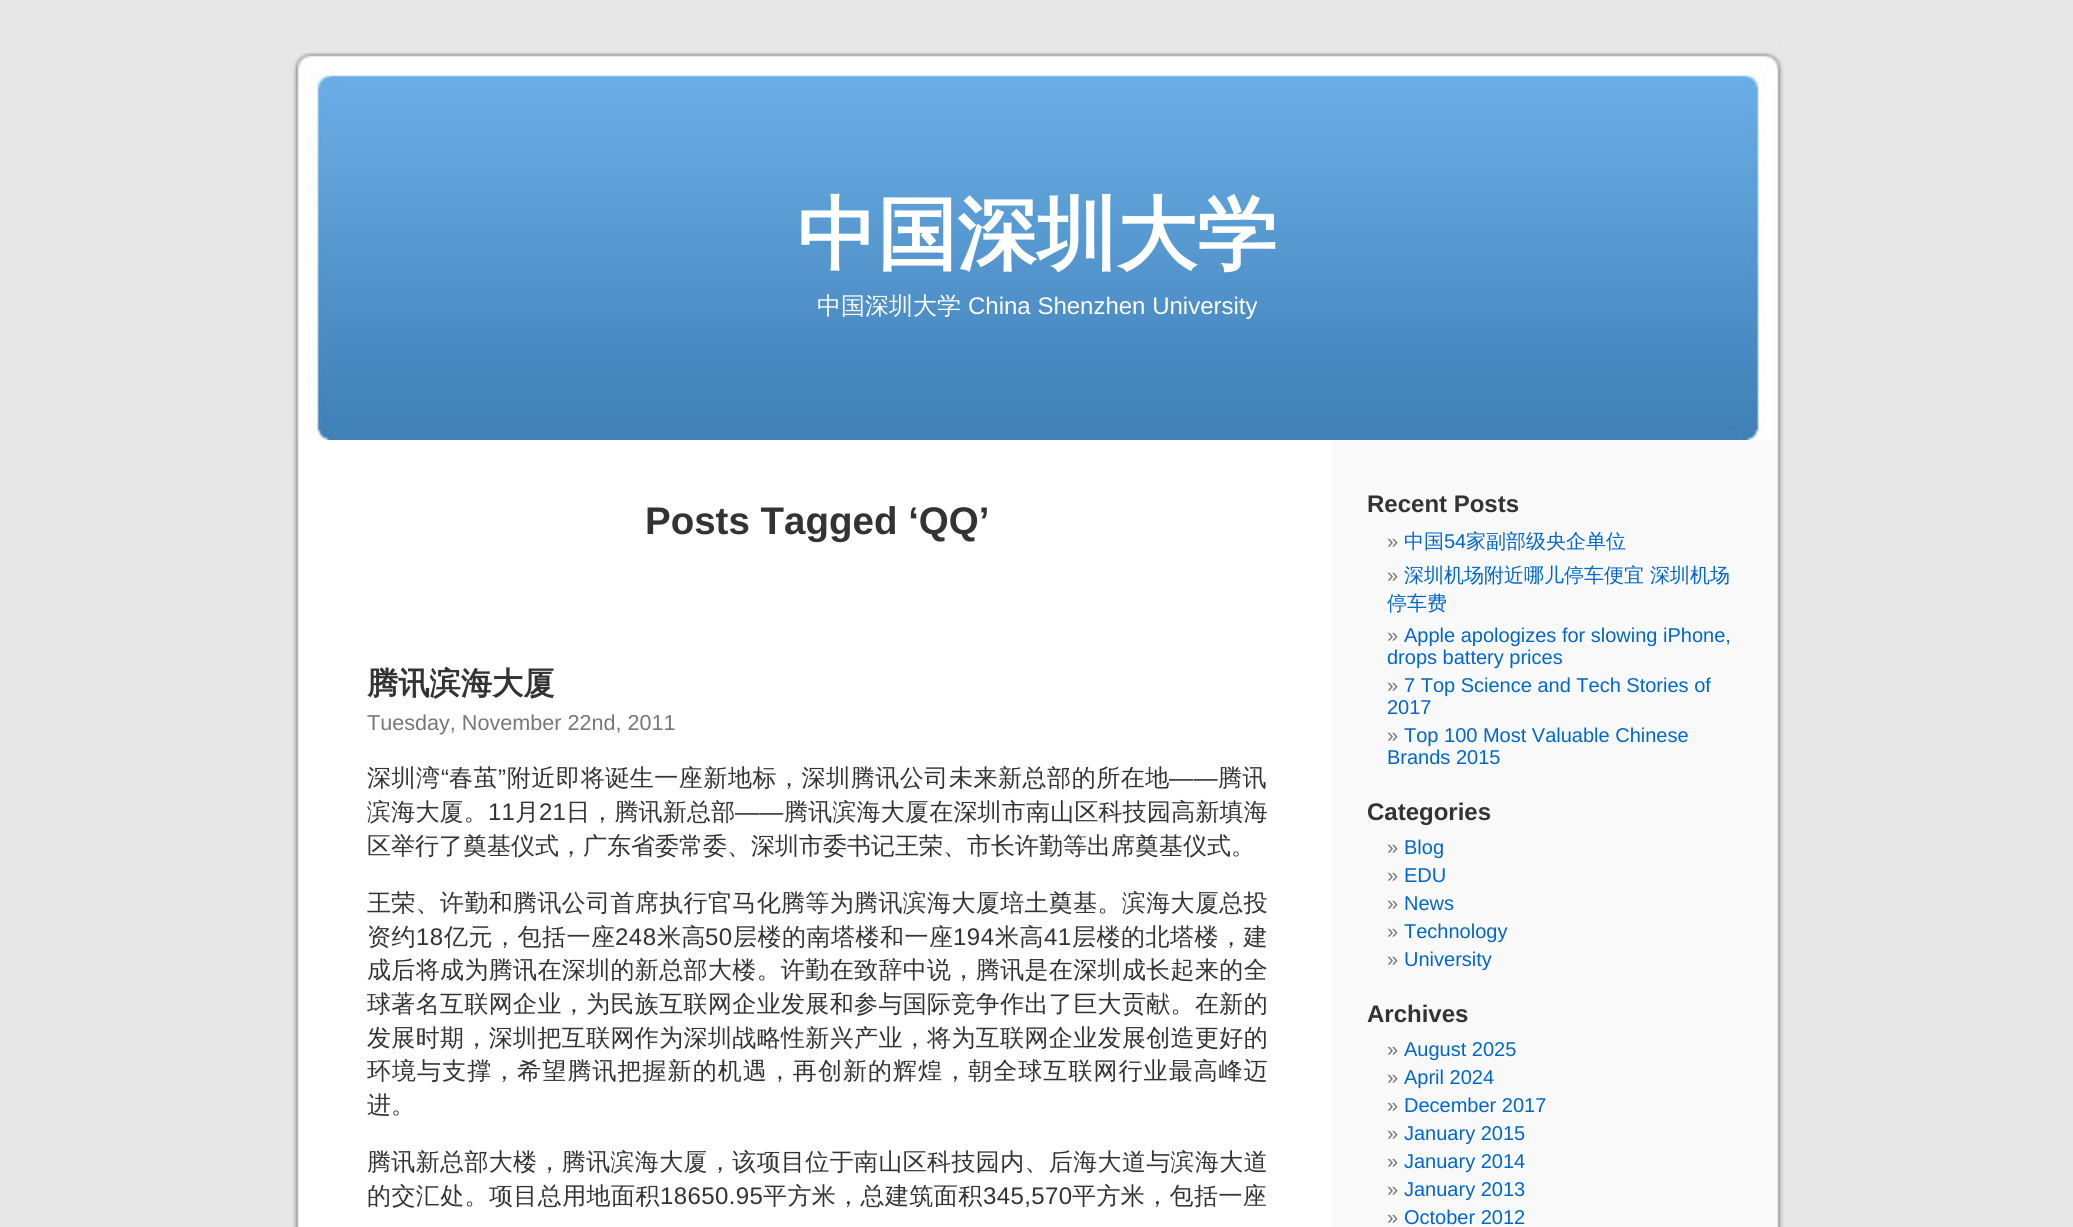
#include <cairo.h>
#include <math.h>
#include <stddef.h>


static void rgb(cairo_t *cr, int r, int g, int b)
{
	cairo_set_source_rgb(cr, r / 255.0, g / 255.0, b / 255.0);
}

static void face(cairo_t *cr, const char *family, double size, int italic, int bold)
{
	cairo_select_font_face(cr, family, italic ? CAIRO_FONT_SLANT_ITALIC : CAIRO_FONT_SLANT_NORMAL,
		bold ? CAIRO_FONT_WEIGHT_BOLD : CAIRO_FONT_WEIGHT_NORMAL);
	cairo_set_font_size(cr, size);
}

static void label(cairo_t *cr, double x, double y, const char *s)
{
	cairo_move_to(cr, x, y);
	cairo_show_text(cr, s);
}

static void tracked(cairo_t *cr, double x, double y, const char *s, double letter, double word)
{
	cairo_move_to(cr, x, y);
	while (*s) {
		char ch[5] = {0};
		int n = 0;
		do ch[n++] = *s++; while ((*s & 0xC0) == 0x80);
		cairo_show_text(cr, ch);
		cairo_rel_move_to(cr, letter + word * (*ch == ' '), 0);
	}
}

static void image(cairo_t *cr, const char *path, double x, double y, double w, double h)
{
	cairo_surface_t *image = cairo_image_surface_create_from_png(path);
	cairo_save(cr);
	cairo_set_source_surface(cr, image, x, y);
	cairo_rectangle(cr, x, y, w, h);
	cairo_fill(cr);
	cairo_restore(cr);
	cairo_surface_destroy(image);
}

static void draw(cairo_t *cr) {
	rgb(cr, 231, 231, 231);
	cairo_paint(cr);
	image(cr, "image0.png", 292, 440, 1492, 787);
	image(cr, "image1.png", 280, 40, 1516, 400);
	face(cr, "WenQuanYi Zen Hei", 80, 0, 1);
	rgb(cr, 255, 255, 255);
	label(cr, 797, 262, "中国深圳大学");
	face(cr, "WenQuanYi Zen Hei Medium", 24, 0, 0);
	label(cr, 817, 314, "中国深圳大学");
	face(cr, "Liberation Sans", 24, 0, 0);
	label(cr, 968, 314, "China Shenzhen University");
	face(cr, "Liberation Sans", 38.5, 0, 1);
	rgb(cr, 51, 51, 51);
	label(cr, 645, 534, "Posts Tagged ‘QQ’");
	face(cr, "WenQuanYi Zen Hei", 31.25, 0, 1);
	label(cr, 367, 694, "腾讯滨海大厦");
	face(cr, "Liberation Sans", 21.6, 0, 0);
	rgb(cr, 119, 119, 119);
	label(cr, 367, 730, "Tuesday, November 22nd, 2011");
	face(cr, "WenQuanYi Zen Hei Medium", 24, 0, 0);
	rgb(cr, 51, 51, 51);
	tracked(cr, 367, 786, "深圳湾", 0.55, 0);
	face(cr, "Liberation Sans", 24, 0, 0);
	tracked(cr, 441, 786, "“", 0.55, 0);
	face(cr, "WenQuanYi Zen Hei Medium", 24, 0, 0);
	tracked(cr, 449, 786, "春茧", 0.55, 0);
	face(cr, "Liberation Sans", 24, 0, 0);
	tracked(cr, 498, 786, "”", 0.55, 0);
	face(cr, "WenQuanYi Zen Hei Medium", 24, 0, 0);
	tracked(cr, 507, 786, "附近即将诞生一座新地标，深圳腾讯公司未来新总部的所在地", 0.55, 0);
	tracked(cr, 1218, 786, "腾讯", 0.55, 0);
	face(cr, "Liberation Sans", 24, 0, 0);
	tracked(cr, 1169, 786, "——", 0.55, 0);
	face(cr, "WenQuanYi Zen Hei Medium", 24, 0, 0);
	tracked(cr, 367, 820, "滨海大厦。", 0.2, 0);
	face(cr, "Liberation Sans", 24, 0, 0);
	tracked(cr, 488, 820, "11", 0.2, 0);
	face(cr, "WenQuanYi Zen Hei Medium", 24, 0, 0);
	tracked(cr, 515, 820, "月", 0.2, 0);
	face(cr, "Liberation Sans", 24, 0, 0);
	tracked(cr, 539, 820, "21", 0.2, 0);
	face(cr, "WenQuanYi Zen Hei Medium", 24, 0, 0);
	tracked(cr, 566, 820, "日，腾讯新总部", 0.2, 0);
	face(cr, "Liberation Sans", 24, 0, 0);
	tracked(cr, 735, 820, "——", 0.2, 0);
	face(cr, "WenQuanYi Zen Hei Medium", 24, 0, 0);
	tracked(cr, 784, 820, "腾讯滨海大厦在深圳市南山区科技园高新填海", 0.2, 0);
	label(cr, 367, 854, "区举行了奠基仪式，广东省委常委、深圳市委书记王荣、市长许勤等出席奠基仪式。");
	tracked(cr, 367, 911, "王荣、许勤和腾讯公司首席执行官马化腾等为腾讯滨海大厦培土奠基。滨海大厦总投", 0.35, 0);
	tracked(cr, 367, 945, "资约", 0.5, 0);
	face(cr, "Liberation Sans", 24, 0, 0);
	tracked(cr, 416, 945, "18", 0.5, 0);
	face(cr, "WenQuanYi Zen Hei Medium", 24, 0, 0);
	tracked(cr, 444, 945, "亿元，包括一座", 0.5, 0);
	face(cr, "Liberation Sans", 24, 0, 0);
	tracked(cr, 615, 945, "248", 0.5, 0);
	face(cr, "WenQuanYi Zen Hei Medium", 24, 0, 0);
	tracked(cr, 657, 945, "米高", 0.5, 0);
	face(cr, "Liberation Sans", 24, 0, 0);
	tracked(cr, 705, 945, "50", 0.5, 0);
	face(cr, "WenQuanYi Zen Hei Medium", 24, 0, 0);
	tracked(cr, 733, 945, "层楼的南塔楼和一座", 0.5, 0);
	face(cr, "Liberation Sans", 24, 0, 0);
	tracked(cr, 953, 945, "194", 0.5, 0);
	face(cr, "WenQuanYi Zen Hei Medium", 24, 0, 0);
	tracked(cr, 995, 945, "米高", 0.5, 0);
	face(cr, "Liberation Sans", 24, 0, 0);
	tracked(cr, 1044, 945, "41", 0.5, 0);
	face(cr, "WenQuanYi Zen Hei Medium", 24, 0, 0);
	tracked(cr, 1072, 945, "层楼的北塔楼，建", 0.5, 0);
	tracked(cr, 367, 978, "成后将成为腾讯在深圳的新总部大楼。许勤在致辞中说，腾讯是在深圳成长起来的全", 0.35, 0);
	tracked(cr, 367, 1012, "球著名互联网企业，为民族互联网企业发展和参与国际竞争作出了巨大贡献。在新的", 0.35, 0);
	tracked(cr, 367, 1046, "发展时期，深圳把互联网作为深圳战略性新兴产业，将为互联网企业发展创造更好的", 0.35, 0);
	tracked(cr, 367, 1079, "环境与支撑，希望腾讯把握新的机遇，再创新的辉煌，朝全球互联网行业最高峰迈", 1.05, 0);
	label(cr, 367, 1113, "进。");
	tracked(cr, 367, 1170, "腾讯新总部大楼，腾讯滨海大厦，该项目位于南山区科技园内、后海大道与滨海大道", 0.35, 0);
	tracked(cr, 367, 1204, "的交汇处。项目总用地面积", 0.4, 0);
	face(cr, "Liberation Sans", 24, 0, 0);
	tracked(cr, 660, 1204, "18650.95", 0.4, 0);
	face(cr, "WenQuanYi Zen Hei Medium", 24, 0, 0);
	tracked(cr, 763, 1204, "平方米，总建筑面积", 0.4, 0);
	face(cr, "Liberation Sans", 24, 0, 0);
	tracked(cr, 983, 1204, "345,570", 0.4, 0);
	face(cr, "WenQuanYi Zen Hei Medium", 24, 0, 0);
	tracked(cr, 1072, 1204, "平方米，包括一座", 0.4, 0);
	face(cr, "Liberation Sans", 24, 0, 1);
	label(cr, 1367, 512, "Recent Posts");
	face(cr, "Liberation Sans", 20, 0, 0);
	rgb(cr, 119, 119, 119);
	label(cr, 1387, 548, "»");
	face(cr, "WenQuanYi Zen Hei Medium", 20, 0, 0);
	rgb(cr, 0, 102, 204);
	label(cr, 1404, 548, "中国");
	face(cr, "Liberation Sans", 20, 0, 0);
	label(cr, 1444, 548, "54");
	face(cr, "WenQuanYi Zen Hei Medium", 20, 0, 0);
	label(cr, 1466, 548, "家副部级央企单位");
	face(cr, "Liberation Sans", 20, 0, 0);
	rgb(cr, 119, 119, 119);
	label(cr, 1387, 582, "»");
	face(cr, "WenQuanYi Zen Hei Medium", 20, 0, 0);
	rgb(cr, 0, 102, 204);
	label(cr, 1404, 582, "深圳机场附近哪儿停车便宜 深圳机场");
	label(cr, 1387, 610, "停车费");
	face(cr, "Liberation Sans", 20, 0, 0);
	rgb(cr, 119, 119, 119);
	label(cr, 1387, 642, "»");
	rgb(cr, 0, 102, 204);
	label(cr, 1404, 642, "Apple apologizes for slowing iPhone,");
	label(cr, 1387, 664, "drops battery prices");
	rgb(cr, 119, 119, 119);
	label(cr, 1387, 692, "»");
	rgb(cr, 0, 102, 204);
	label(cr, 1404, 692, "7 Top Science and Tech Stories of");
	label(cr, 1387, 714, "2017");
	rgb(cr, 119, 119, 119);
	label(cr, 1387, 742, "»");
	rgb(cr, 0, 102, 204);
	label(cr, 1404, 742, "Top 100 Most Valuable Chinese");
	label(cr, 1387, 764, "Brands 2015");
	face(cr, "Liberation Sans", 24, 0, 1);
	rgb(cr, 51, 51, 51);
	label(cr, 1367, 820, "Categories");
	face(cr, "Liberation Sans", 20, 0, 0);
	rgb(cr, 119, 119, 119);
	label(cr, 1387, 854, "»");
	rgb(cr, 0, 102, 204);
	label(cr, 1404, 854, "Blog");
	rgb(cr, 119, 119, 119);
	label(cr, 1387, 882, "»");
	rgb(cr, 0, 102, 204);
	label(cr, 1404, 882, "EDU");
	rgb(cr, 119, 119, 119);
	label(cr, 1387, 910, "»");
	rgb(cr, 0, 102, 204);
	label(cr, 1404, 910, "News");
	rgb(cr, 119, 119, 119);
	label(cr, 1387, 938, "»");
	rgb(cr, 0, 102, 204);
	label(cr, 1404, 938, "Technology");
	rgb(cr, 119, 119, 119);
	label(cr, 1387, 966, "»");
	rgb(cr, 0, 102, 204);
	label(cr, 1404, 966, "University");
	face(cr, "Liberation Sans", 24, 0, 1);
	rgb(cr, 51, 51, 51);
	label(cr, 1367, 1022, "Archives");
	face(cr, "Liberation Sans", 20, 0, 0);
	rgb(cr, 119, 119, 119);
	label(cr, 1387, 1056, "»");
	rgb(cr, 0, 102, 204);
	label(cr, 1404, 1056, "August 2025");
	rgb(cr, 119, 119, 119);
	label(cr, 1387, 1084, "»");
	rgb(cr, 0, 102, 204);
	label(cr, 1404, 1084, "April 2024");
	rgb(cr, 119, 119, 119);
	label(cr, 1387, 1112, "»");
	rgb(cr, 0, 102, 204);
	label(cr, 1404, 1112, "December 2017");
	rgb(cr, 119, 119, 119);
	label(cr, 1387, 1140, "»");
	rgb(cr, 0, 102, 204);
	label(cr, 1404, 1140, "January 2015");
	rgb(cr, 119, 119, 119);
	label(cr, 1387, 1168, "»");
	rgb(cr, 0, 102, 204);
	label(cr, 1404, 1168, "January 2014");
	rgb(cr, 119, 119, 119);
	label(cr, 1387, 1196, "»");
	rgb(cr, 0, 102, 204);
	label(cr, 1404, 1196, "January 2013");
	rgb(cr, 119, 119, 119);
	label(cr, 1387, 1224, "»");
	rgb(cr, 0, 102, 204);
	label(cr, 1404, 1224, "October 2012");
}

int main(void) {
	cairo_surface_t *surface = cairo_image_surface_create(CAIRO_FORMAT_RGB24, 2073, 1227);
	cairo_t *cr = cairo_create(surface);
	cairo_font_options_t *options = cairo_font_options_create();
	cairo_font_options_set_hint_metrics(options, CAIRO_HINT_METRICS_OFF);
	cairo_font_options_set_hint_style(options, CAIRO_HINT_STYLE_NONE);
	cairo_set_font_options(cr, options);
	cairo_set_miter_limit(cr, 4);
	draw(cr);
	cairo_surface_write_to_png(surface, "render.png");
	cairo_font_options_destroy(options);
	cairo_destroy(cr);
	cairo_surface_destroy(surface);
	return 0;
}
